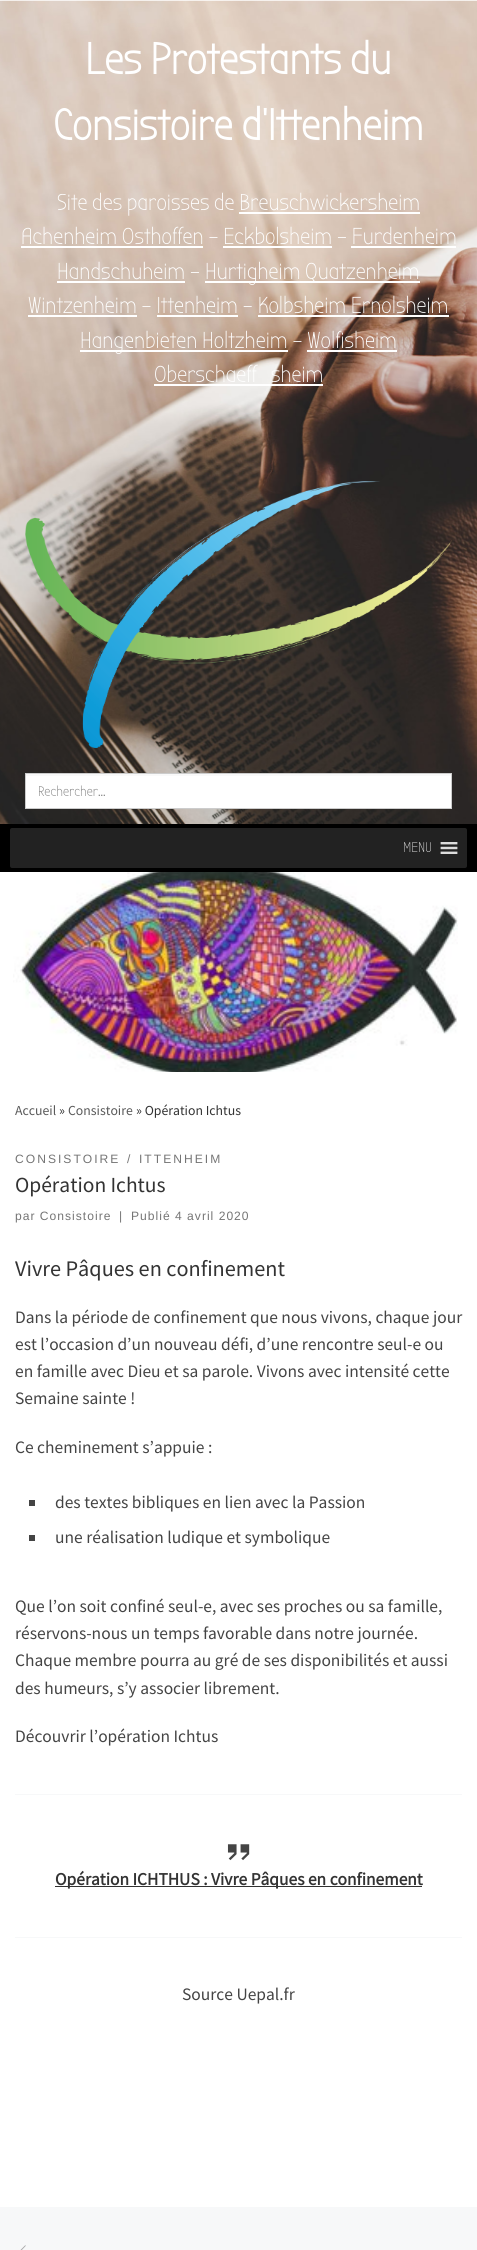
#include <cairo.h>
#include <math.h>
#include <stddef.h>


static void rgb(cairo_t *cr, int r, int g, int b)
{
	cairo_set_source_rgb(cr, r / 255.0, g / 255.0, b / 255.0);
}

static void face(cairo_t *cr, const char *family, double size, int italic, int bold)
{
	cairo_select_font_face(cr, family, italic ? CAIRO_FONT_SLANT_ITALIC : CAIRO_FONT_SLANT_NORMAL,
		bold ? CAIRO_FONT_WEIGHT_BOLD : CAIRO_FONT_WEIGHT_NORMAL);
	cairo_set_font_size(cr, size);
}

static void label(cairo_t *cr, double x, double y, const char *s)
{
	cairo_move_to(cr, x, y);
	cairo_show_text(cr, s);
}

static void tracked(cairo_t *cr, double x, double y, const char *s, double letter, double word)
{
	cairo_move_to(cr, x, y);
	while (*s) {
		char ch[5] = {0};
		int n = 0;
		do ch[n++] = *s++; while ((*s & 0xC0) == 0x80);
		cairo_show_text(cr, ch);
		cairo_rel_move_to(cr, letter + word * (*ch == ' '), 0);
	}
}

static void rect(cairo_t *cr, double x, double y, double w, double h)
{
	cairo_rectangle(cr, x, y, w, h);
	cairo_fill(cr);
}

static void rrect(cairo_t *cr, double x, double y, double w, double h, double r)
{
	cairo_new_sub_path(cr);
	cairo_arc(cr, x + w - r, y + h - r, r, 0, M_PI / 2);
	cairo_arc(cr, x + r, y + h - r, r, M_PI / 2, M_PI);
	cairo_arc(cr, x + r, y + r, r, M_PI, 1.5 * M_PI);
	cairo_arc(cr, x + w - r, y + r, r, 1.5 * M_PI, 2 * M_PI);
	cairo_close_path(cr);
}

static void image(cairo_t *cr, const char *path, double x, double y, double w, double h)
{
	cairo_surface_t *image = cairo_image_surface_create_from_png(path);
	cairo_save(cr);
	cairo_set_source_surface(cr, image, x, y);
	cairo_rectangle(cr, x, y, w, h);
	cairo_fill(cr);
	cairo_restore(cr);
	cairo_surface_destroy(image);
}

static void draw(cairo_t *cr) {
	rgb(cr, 255, 255, 255);
	cairo_paint(cr);
	image(cr, "image0.png", 0, 0, 477, 824);
	cairo_set_source_rgba(cr, 1, 1, 1, 0.72);
	rect(cr, 0, 0, 477, 1);
	face(cr, "Bubbler One", 44, 0, 1);
	rgb(cr, 255, 255, 255);
	label(cr, 85, 74, "Les Protestants du");
	label(cr, 53, 140, "Consistoire d’Ittenheim");
	face(cr, "Bubbler One", 23, 0, 0);
	label(cr, 57, 210, "Site des paroisses de Breuschwickersheim");
	label(cr, 21, 244, "Achenheim Osthoffen – Eckbolsheim – Furdenheim");
	rect(cr, 239, 212, 181, 2);
	rect(cr, 21, 246, 182, 2);
	rect(cr, 223, 246, 109, 2);
	label(cr, 57, 279, "Handschuheim –");
	rect(cr, 351, 246, 105, 2);
	rect(cr, 57, 281, 128, 2);
	rect(cr, 205, 281, 215, 2);
	label(cr, 205, 279, "Hurtigheim Quatzenheim");
	label(cr, 28, 313, "Wintzenheim – Ittenheim – Kolbsheim Ernolsheim");
	rect(cr, 28, 315, 109, 2);
	rect(cr, 157, 315, 81, 2);
	rect(cr, 80, 350, 208, 2);
	label(cr, 80, 348, "Hangenbieten Holtzheim – Wolfisheim");
	rect(cr, 258, 315, 191, 2);
	label(cr, 154, 382, "Oberschaeff");
	rect(cr, 154, 384, 169, 2);
	label(cr, 271, 382, "sheim");
	rect(cr, 307, 350, 90, 2);
	image(cr, "image1.png", 25, 481, 427, 267);
	rect(cr, 26, 776, 425, 32);
	rgb(cr, 249, 249, 249);
	rect(cr, 26, 774, 425, 2);
	cairo_rectangle(cr, 25.5, 773.5, 426, 35);
	rgb(cr, 204, 204, 204);
	cairo_set_line_width(cr, 1);
	cairo_stroke(cr);
	face(cr, "Bubbler One", 14, 0, 0);
	rgb(cr, 117, 117, 117);
	label(cr, 38, 796, "Rechercher...");
	rgb(cr, 0, 0, 0);
	rect(cr, 0, 824, 477, 48);
	rgb(cr, 34, 34, 34);
	rrect(cr, 10, 828, 457, 40, 2);
	cairo_fill(cr);
	rgb(cr, 221, 221, 221);
	label(cr, 403, 852, "MENU");
	image(cr, "image2.png", 440, 842, 18, 12);
	image(cr, "image3.png", 13, 872, 445, 200);
	face(cr, "Source Sans Pro", 13.75, 0, 0);
	rgb(cr, 90, 90, 90);
	label(cr, 15, 1115, "Accueil");
	rgb(cr, 51, 51, 51);
	label(cr, 59, 1115, "»");
	rgb(cr, 90, 90, 90);
	label(cr, 68, 1115, "Consistoire");
	rgb(cr, 51, 51, 51);
	label(cr, 136, 1115, "» Opération Ichtus");
	face(cr, "Liberation Sans", 12.1, 0, 0);
	rgb(cr, 117, 117, 117);
	tracked(cr, 15, 1163, "CONSISTOIRE", 2, 0);
	tracked(cr, 127, 1163, "/", 2, 0);
	tracked(cr, 139, 1163, "ITTENHEIM", 2, 0);
	face(cr, "Source Sans Pro", 21.5, 0, 0);
	rgb(cr, 51, 51, 51);
	label(cr, 15, 1192, "Opération Ichtus");
	face(cr, "Liberation Sans", 12.1, 0, 0);
	rgb(cr, 117, 117, 117);
	tracked(cr, 15, 1220, "par Consistoire", 1, 0);
	tracked(cr, 119, 1220, "|", 1, 0);
	tracked(cr, 131, 1220, "Publié 4 avril 2020", 1, 0);
	face(cr, "Source Sans Pro", 22.25, 0, 0);
	rgb(cr, 51, 51, 51);
	label(cr, 15, 1276, "Vivre Pâques en confinement");
	face(cr, "Source Sans Pro", 17.45, 0, 0);
	rgb(cr, 68, 68, 68);
	label(cr, 15, 1323, "Dans la période de confinement que nous vivons, chaque jour");
	label(cr, 15, 1350, "est l’occasion d’un nouveau défi, d’une rencontre seul-e ou");
	label(cr, 15, 1377, "en famille avec Dieu et sa parole. Vivons avec intensité cette");
	label(cr, 15, 1404, "Semaine sainte !");
	label(cr, 15, 1453, "Ce cheminement s’appuie :");
	rect(cr, 29, 1500, 6, 6);
	label(cr, 55, 1508, "des textes bibliques en lien avec la Passion");
	rect(cr, 29, 1535, 6, 6);
	label(cr, 55, 1543, "une réalisation ludique et symbolique");
	label(cr, 15, 1612, "Que l’on soit confiné seul-e, avec ses proches ou sa famille,");
	label(cr, 15, 1639, "réservons-nous un temps favorable dans notre journée.");
	label(cr, 15, 1666, "Chaque membre pourra au gré de ses disponibilités et aussi");
	label(cr, 15, 1694, "des humeurs, s’y associer librement.");
	label(cr, 15, 1742, "Découvrir l’opération Ichtus");
	rgb(cr, 247, 248, 249);
	rect(cr, 15, 1794, 447, 1);
	rect(cr, 15, 1937, 447, 1);
	image(cr, "image4.png", 227, 1844, 23, 17);
	rgb(cr, 49, 49, 49);
	rect(cr, 55, 1886, 367, 1);
	face(cr, "Source Sans Pro", 17.45, 0, 1);
	rgb(cr, 51, 51, 51);
	label(cr, 55, 1885, "Opération ICHTHUS : Vivre Pâques en confinement");
	face(cr, "Source Sans Pro", 17.45, 0, 0);
	rgb(cr, 68, 68, 68);
	label(cr, 182, 2000, "Source Uepal.fr");
	rgb(cr, 247, 248, 249);
	rect(cr, 0, 2207, 477, 43);
	image(cr, "image5.png", 20, 2245, 6, 5);
}

int main(void) {
	cairo_surface_t *surface = cairo_image_surface_create(CAIRO_FORMAT_RGB24, 477, 2250);
	cairo_t *cr = cairo_create(surface);
	cairo_font_options_t *options = cairo_font_options_create();
	cairo_font_options_set_hint_metrics(options, CAIRO_HINT_METRICS_OFF);
	cairo_font_options_set_hint_style(options, CAIRO_HINT_STYLE_NONE);
	cairo_set_font_options(cr, options);
	cairo_set_miter_limit(cr, 4);
	draw(cr);
	cairo_surface_write_to_png(surface, "render.png");
	cairo_font_options_destroy(options);
	cairo_destroy(cr);
	cairo_surface_destroy(surface);
	return 0;
}
